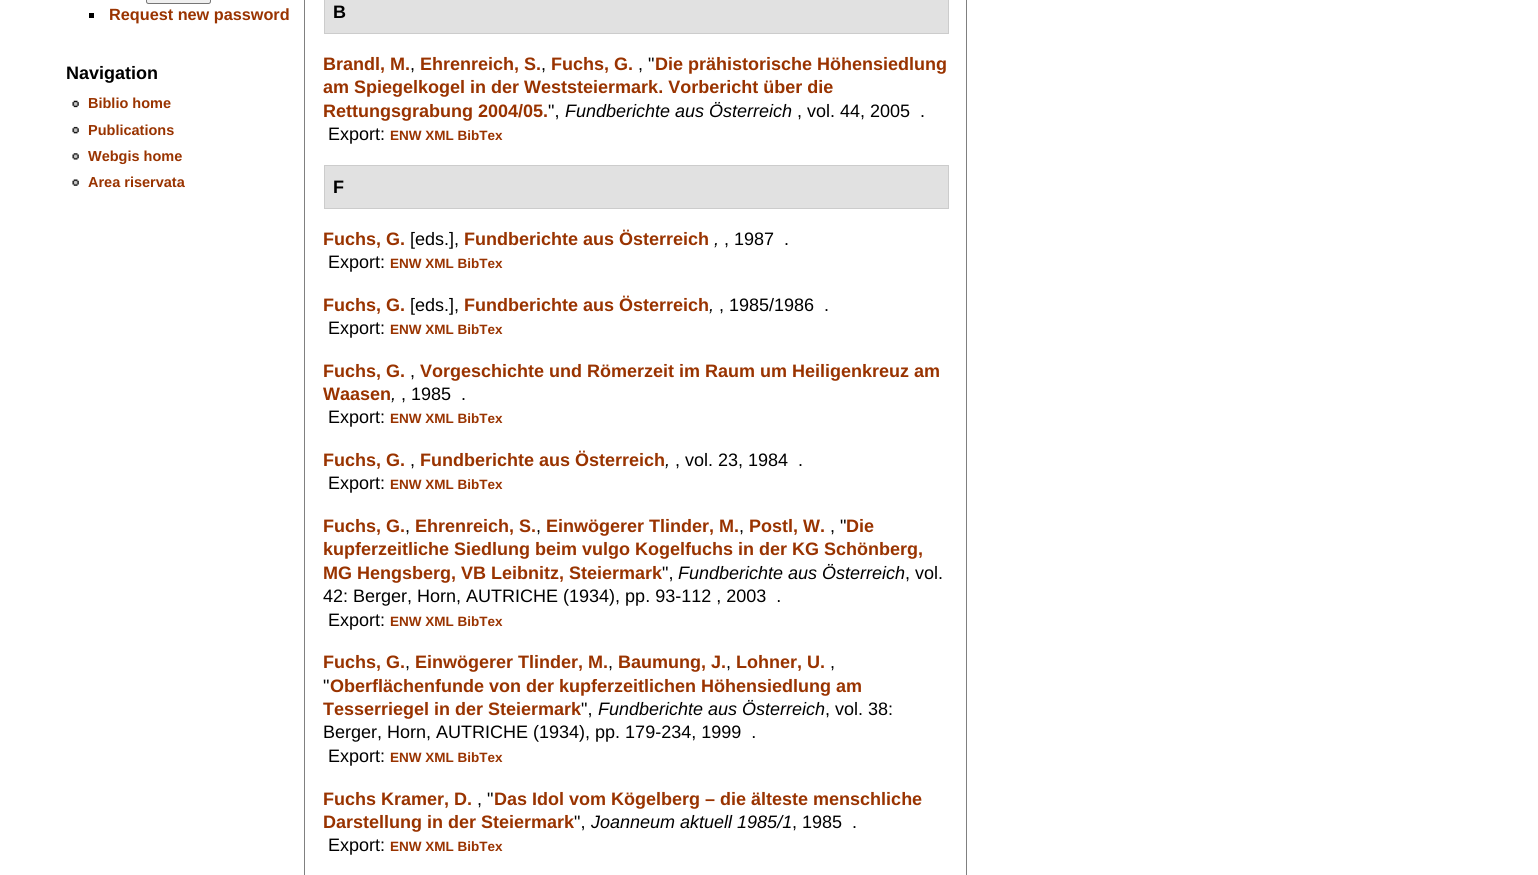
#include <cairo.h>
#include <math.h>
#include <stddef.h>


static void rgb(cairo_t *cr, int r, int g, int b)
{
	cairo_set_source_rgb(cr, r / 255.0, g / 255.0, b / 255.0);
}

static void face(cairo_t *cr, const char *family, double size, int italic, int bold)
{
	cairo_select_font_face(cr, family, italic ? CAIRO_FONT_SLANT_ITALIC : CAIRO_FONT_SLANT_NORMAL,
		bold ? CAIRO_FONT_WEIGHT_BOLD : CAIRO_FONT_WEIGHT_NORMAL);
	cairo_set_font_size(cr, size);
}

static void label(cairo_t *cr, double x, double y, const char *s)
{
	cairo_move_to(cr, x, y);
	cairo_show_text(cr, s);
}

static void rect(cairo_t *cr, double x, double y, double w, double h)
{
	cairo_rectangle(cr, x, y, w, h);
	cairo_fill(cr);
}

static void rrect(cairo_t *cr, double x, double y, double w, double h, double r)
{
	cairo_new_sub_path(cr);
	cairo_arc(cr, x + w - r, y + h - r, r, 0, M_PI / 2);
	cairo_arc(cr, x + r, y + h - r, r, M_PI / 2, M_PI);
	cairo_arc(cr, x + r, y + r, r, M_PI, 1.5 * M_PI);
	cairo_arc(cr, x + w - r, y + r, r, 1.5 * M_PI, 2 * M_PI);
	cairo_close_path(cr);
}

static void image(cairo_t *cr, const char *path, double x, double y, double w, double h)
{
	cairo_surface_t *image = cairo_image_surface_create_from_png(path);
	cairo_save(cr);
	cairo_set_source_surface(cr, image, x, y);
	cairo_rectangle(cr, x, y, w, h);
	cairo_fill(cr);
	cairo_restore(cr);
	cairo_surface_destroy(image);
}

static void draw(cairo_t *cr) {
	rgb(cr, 255, 255, 255);
	cairo_paint(cr);
	rgb(cr, 128, 128, 128);
	rect(cr, 304, 0, 1, 875);
	rgb(cr, 239, 239, 239);
	rrect(cr, 146.5, -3.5, 64, 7, 2);
	cairo_fill_preserve(cr);
	rgb(cr, 118, 118, 118);
	cairo_set_line_width(cr, 1);
	cairo_stroke(cr);
	rgb(cr, 0, 0, 0);
	rect(cr, 89, 13, 5, 5);
	face(cr, "Liberation Sans", 16.25, 0, 1);
	rgb(cr, 153, 51, 0);
	label(cr, 109, 20, "Request new password");
	face(cr, "Liberation Sans", 18, 0, 1);
	rgb(cr, 0, 0, 0);
	label(cr, 66, 79, "Navigation");
	image(cr, "image0.png", 72, 100, 7, 8);
	face(cr, "Liberation Sans", 14.5, 0, 1);
	rgb(cr, 153, 51, 0);
	label(cr, 88, 108, "Biblio home");
	image(cr, "image1.png", 72, 126, 7, 8);
	label(cr, 88, 135, "Publications");
	image(cr, "image2.png", 72, 153, 7, 7);
	label(cr, 88, 161, "Webgis home");
	image(cr, "image3.png", 72, 179, 7, 7);
	label(cr, 88, 187, "Area riservata");
	rgb(cr, 225, 225, 225);
	cairo_rectangle(cr, 324.5, -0.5, 624, 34);
	cairo_fill_preserve(cr);
	rgb(cr, 204, 204, 204);
	cairo_stroke(cr);
	face(cr, "Liberation Sans", 18, 0, 1);
	rgb(cr, 0, 0, 0);
	label(cr, 333, 18, "B");
	rgb(cr, 153, 51, 0);
	label(cr, 323, 70, "Brandl, M.");
	face(cr, "Liberation Sans", 18, 0, 0);
	rgb(cr, 0, 0, 0);
	label(cr, 410, 70, ",");
	face(cr, "Liberation Sans", 18, 0, 1);
	rgb(cr, 153, 51, 0);
	label(cr, 420, 70, "Ehrenreich, S.");
	face(cr, "Liberation Sans", 18, 0, 0);
	rgb(cr, 0, 0, 0);
	label(cr, 541, 70, ",");
	face(cr, "Liberation Sans", 18, 0, 1);
	rgb(cr, 153, 51, 0);
	label(cr, 551, 70, "Fuchs, G.");
	face(cr, "Liberation Sans", 18, 0, 0);
	rgb(cr, 0, 0, 0);
	label(cr, 638, 70, ", \"");
	face(cr, "Liberation Sans", 18, 0, 1);
	rgb(cr, 153, 51, 0);
	label(cr, 655, 70, "Die prähistorische Höhensiedlung");
	label(cr, 323, 93, "am Spiegelkogel in der Weststeiermark. Vorbericht über die");
	label(cr, 323, 117, "Rettungsgrabung 2004/05.");
	face(cr, "Liberation Sans", 18, 0, 0);
	rgb(cr, 0, 0, 0);
	label(cr, 548, 117, "\",");
	face(cr, "Liberation Sans", 18, 1, 0);
	label(cr, 565, 117, "Fundberichte aus Österreich");
	face(cr, "Liberation Sans", 18, 0, 0);
	label(cr, 797, 117, ", vol. 44, 2005  .");
	label(cr, 328, 140, "Export:");
	face(cr, "Liberation Sans", 13.5, 0, 1);
	rgb(cr, 153, 51, 0);
	label(cr, 390, 140, "ENW XML BibTex");
	rgb(cr, 225, 225, 225);
	cairo_rectangle(cr, 324.5, 165.5, 624, 43);
	cairo_fill_preserve(cr);
	rgb(cr, 204, 204, 204);
	cairo_stroke(cr);
	face(cr, "Liberation Sans", 18, 0, 1);
	rgb(cr, 0, 0, 0);
	label(cr, 333, 193, "F");
	rgb(cr, 153, 51, 0);
	label(cr, 323, 245, "Fuchs, G.");
	face(cr, "Liberation Sans", 18, 0, 0);
	rgb(cr, 0, 0, 0);
	label(cr, 410, 245, "[eds.],");
	face(cr, "Liberation Sans", 18, 0, 1);
	rgb(cr, 153, 51, 0);
	label(cr, 464, 245, "Fundberichte aus Österreich");
	face(cr, "Liberation Sans", 18, 1, 0);
	rgb(cr, 0, 0, 0);
	label(cr, 714, 245, ",");
	face(cr, "Liberation Sans", 18, 0, 0);
	label(cr, 724, 245, ", 1987  .");
	label(cr, 328, 268, "Export:");
	face(cr, "Liberation Sans", 13.5, 0, 1);
	rgb(cr, 153, 51, 0);
	label(cr, 390, 268, "ENW XML BibTex");
	face(cr, "Liberation Sans", 18, 0, 1);
	label(cr, 323, 311, "Fuchs, G.");
	face(cr, "Liberation Sans", 18, 0, 0);
	rgb(cr, 0, 0, 0);
	label(cr, 410, 311, "[eds.],");
	face(cr, "Liberation Sans", 18, 0, 1);
	rgb(cr, 153, 51, 0);
	label(cr, 464, 311, "Fundberichte aus Österreich");
	face(cr, "Liberation Sans", 18, 1, 0);
	rgb(cr, 0, 0, 0);
	label(cr, 709, 311, ",");
	face(cr, "Liberation Sans", 18, 0, 0);
	label(cr, 719, 311, ", 1985/1986  .");
	label(cr, 328, 334, "Export:");
	face(cr, "Liberation Sans", 13.5, 0, 1);
	rgb(cr, 153, 51, 0);
	label(cr, 390, 334, "ENW XML BibTex");
	face(cr, "Liberation Sans", 18, 0, 1);
	label(cr, 323, 377, "Fuchs, G.");
	face(cr, "Liberation Sans", 18, 0, 0);
	rgb(cr, 0, 0, 0);
	label(cr, 410, 377, ",");
	face(cr, "Liberation Sans", 18, 0, 1);
	rgb(cr, 153, 51, 0);
	label(cr, 420, 377, "Vorgeschichte und Römerzeit im Raum um Heiligenkreuz am");
	label(cr, 323, 400, "Waasen");
	face(cr, "Liberation Sans", 18, 1, 0);
	rgb(cr, 0, 0, 0);
	label(cr, 391, 400, ",");
	face(cr, "Liberation Sans", 18, 0, 0);
	label(cr, 401, 400, ", 1985  .");
	label(cr, 328, 423, "Export:");
	face(cr, "Liberation Sans", 13.5, 0, 1);
	rgb(cr, 153, 51, 0);
	label(cr, 390, 423, "ENW XML BibTex");
	face(cr, "Liberation Sans", 18, 0, 1);
	label(cr, 323, 466, "Fuchs, G.");
	face(cr, "Liberation Sans", 18, 0, 0);
	rgb(cr, 0, 0, 0);
	label(cr, 410, 466, ",");
	face(cr, "Liberation Sans", 18, 0, 1);
	rgb(cr, 153, 51, 0);
	label(cr, 420, 466, "Fundberichte aus Österreich");
	face(cr, "Liberation Sans", 18, 1, 0);
	rgb(cr, 0, 0, 0);
	label(cr, 665, 466, ",");
	face(cr, "Liberation Sans", 18, 0, 0);
	label(cr, 675, 466, ", vol. 23, 1984  .");
	label(cr, 328, 489, "Export:");
	face(cr, "Liberation Sans", 13.5, 0, 1);
	rgb(cr, 153, 51, 0);
	label(cr, 390, 489, "ENW XML BibTex");
	face(cr, "Liberation Sans", 18, 0, 1);
	label(cr, 323, 532, "Fuchs, G.");
	face(cr, "Liberation Sans", 18, 0, 0);
	rgb(cr, 0, 0, 0);
	label(cr, 405, 532, ",");
	face(cr, "Liberation Sans", 18, 0, 1);
	rgb(cr, 153, 51, 0);
	label(cr, 415, 532, "Ehrenreich, S.");
	face(cr, "Liberation Sans", 18, 0, 0);
	rgb(cr, 0, 0, 0);
	label(cr, 536, 532, ",");
	face(cr, "Liberation Sans", 18, 0, 1);
	rgb(cr, 153, 51, 0);
	label(cr, 546, 532, "Einwögerer Tlinder, M.");
	face(cr, "Liberation Sans", 18, 0, 0);
	rgb(cr, 0, 0, 0);
	label(cr, 739, 532, ",");
	face(cr, "Liberation Sans", 18, 0, 1);
	rgb(cr, 153, 51, 0);
	label(cr, 749, 532, "Postl, W.");
	face(cr, "Liberation Sans", 18, 0, 0);
	rgb(cr, 0, 0, 0);
	label(cr, 830, 532, ", \"");
	face(cr, "Liberation Sans", 18, 0, 1);
	rgb(cr, 153, 51, 0);
	label(cr, 846, 532, "Die");
	label(cr, 323, 555, "kupferzeitliche Siedlung beim vulgo Kogelfuchs in der KG Schönberg,");
	label(cr, 323, 579, "MG Hengsberg, VB Leibnitz, Steiermark");
	face(cr, "Liberation Sans", 18, 0, 0);
	rgb(cr, 0, 0, 0);
	label(cr, 662, 579, "\",");
	face(cr, "Liberation Sans", 18, 1, 0);
	label(cr, 678, 579, "Fundberichte aus Österreich");
	face(cr, "Liberation Sans", 18, 0, 0);
	label(cr, 905, 579, ", vol.");
	label(cr, 323, 602, "42: Berger, Horn, AUTRICHE (1934), pp. 93-112 , 2003  .");
	label(cr, 328, 626, "Export:");
	face(cr, "Liberation Sans", 13.5, 0, 1);
	rgb(cr, 153, 51, 0);
	label(cr, 390, 626, "ENW XML BibTex");
	face(cr, "Liberation Sans", 18, 0, 1);
	label(cr, 323, 668, "Fuchs, G.");
	face(cr, "Liberation Sans", 18, 0, 0);
	rgb(cr, 0, 0, 0);
	label(cr, 405, 668, ",");
	face(cr, "Liberation Sans", 18, 0, 1);
	rgb(cr, 153, 51, 0);
	label(cr, 415, 668, "Einwögerer Tlinder, M.");
	face(cr, "Liberation Sans", 18, 0, 0);
	rgb(cr, 0, 0, 0);
	label(cr, 608, 668, ",");
	face(cr, "Liberation Sans", 18, 0, 1);
	rgb(cr, 153, 51, 0);
	label(cr, 618, 668, "Baumung, J.");
	face(cr, "Liberation Sans", 18, 0, 0);
	rgb(cr, 0, 0, 0);
	label(cr, 726, 668, ",");
	face(cr, "Liberation Sans", 18, 0, 1);
	rgb(cr, 153, 51, 0);
	label(cr, 736, 668, "Lohner, U.");
	face(cr, "Liberation Sans", 18, 0, 0);
	rgb(cr, 0, 0, 0);
	label(cr, 830, 668, ",");
	label(cr, 323, 692, "\"");
	face(cr, "Liberation Sans", 18, 0, 1);
	rgb(cr, 153, 51, 0);
	label(cr, 330, 692, "Oberflächenfunde von der kupferzeitlichen Höhensiedlung am");
	label(cr, 323, 715, "Tesserriegel in der Steiermark");
	face(cr, "Liberation Sans", 18, 0, 0);
	rgb(cr, 0, 0, 0);
	label(cr, 581, 715, "\",");
	face(cr, "Liberation Sans", 18, 1, 0);
	label(cr, 598, 715, "Fundberichte aus Österreich");
	face(cr, "Liberation Sans", 18, 0, 0);
	label(cr, 825, 715, ", vol. 38:");
	label(cr, 323, 738, "Berger, Horn, AUTRICHE (1934), pp. 179-234, 1999  .");
	label(cr, 328, 762, "Export:");
	face(cr, "Liberation Sans", 13.5, 0, 1);
	rgb(cr, 153, 51, 0);
	label(cr, 390, 762, "ENW XML BibTex");
	face(cr, "Liberation Sans", 18, 0, 1);
	label(cr, 323, 805, "Fuchs Kramer, D.");
	face(cr, "Liberation Sans", 18, 0, 0);
	rgb(cr, 0, 0, 0);
	label(cr, 477, 805, ", \"");
	face(cr, "Liberation Sans", 18, 0, 1);
	rgb(cr, 153, 51, 0);
	label(cr, 494, 805, "Das Idol vom Kögelberg – die älteste menschliche");
	label(cr, 323, 828, "Darstellung in der Steiermark");
	face(cr, "Liberation Sans", 18, 0, 0);
	rgb(cr, 0, 0, 0);
	label(cr, 574, 828, "\",");
	face(cr, "Liberation Sans", 18, 1, 0);
	label(cr, 591, 828, "Joanneum aktuell 1985/1");
	face(cr, "Liberation Sans", 18, 0, 0);
	label(cr, 792, 828, ", 1985  .");
	label(cr, 328, 851, "Export:");
	face(cr, "Liberation Sans", 13.5, 0, 1);
	rgb(cr, 153, 51, 0);
	label(cr, 390, 851, "ENW XML BibTex");
	rgb(cr, 128, 128, 128);
	rect(cr, 966, 0, 1, 875);
}

int main(void) {
	cairo_surface_t *surface = cairo_image_surface_create(CAIRO_FORMAT_RGB24, 1538, 875);
	cairo_t *cr = cairo_create(surface);
	cairo_font_options_t *options = cairo_font_options_create();
	cairo_font_options_set_hint_metrics(options, CAIRO_HINT_METRICS_OFF);
	cairo_font_options_set_hint_style(options, CAIRO_HINT_STYLE_NONE);
	cairo_set_font_options(cr, options);
	cairo_set_miter_limit(cr, 4);
	draw(cr);
	cairo_surface_write_to_png(surface, "render.png");
	cairo_font_options_destroy(options);
	cairo_destroy(cr);
	cairo_surface_destroy(surface);
	return 0;
}
